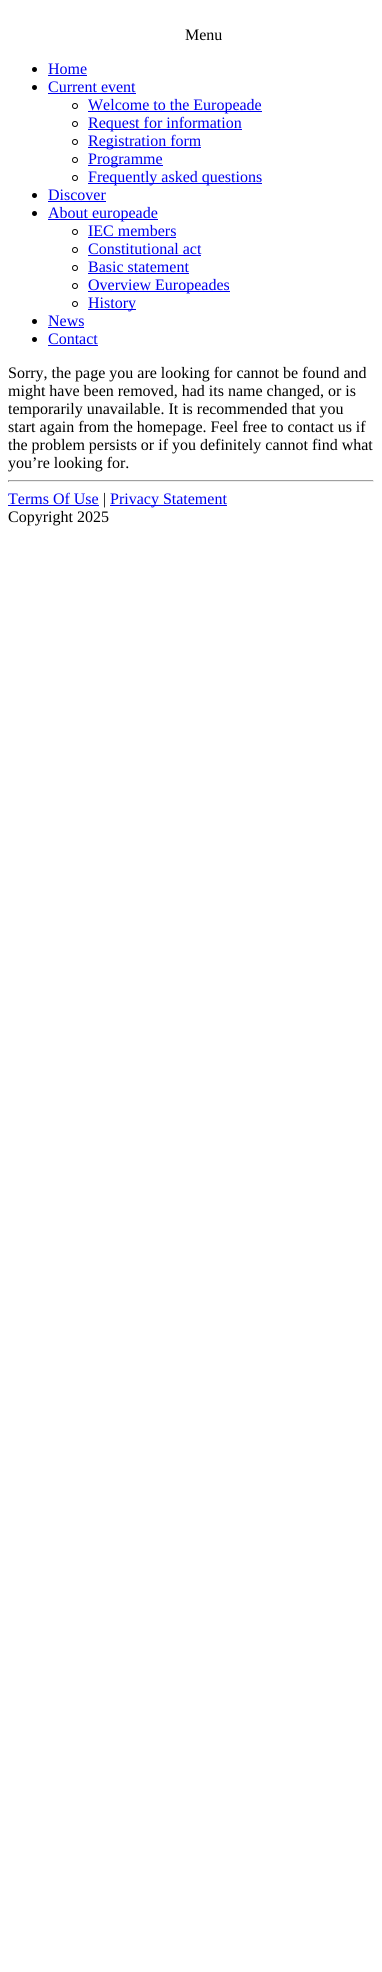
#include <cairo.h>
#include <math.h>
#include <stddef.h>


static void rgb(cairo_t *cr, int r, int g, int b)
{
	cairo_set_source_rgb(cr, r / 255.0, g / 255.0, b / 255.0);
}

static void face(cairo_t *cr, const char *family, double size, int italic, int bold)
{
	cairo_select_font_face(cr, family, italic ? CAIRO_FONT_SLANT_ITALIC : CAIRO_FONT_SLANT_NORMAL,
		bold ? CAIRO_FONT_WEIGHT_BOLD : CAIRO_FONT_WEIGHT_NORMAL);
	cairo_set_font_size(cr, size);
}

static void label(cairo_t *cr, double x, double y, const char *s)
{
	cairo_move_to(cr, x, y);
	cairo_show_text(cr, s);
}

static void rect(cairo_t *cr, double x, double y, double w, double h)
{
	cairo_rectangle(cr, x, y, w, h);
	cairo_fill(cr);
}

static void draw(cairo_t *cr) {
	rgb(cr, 255, 255, 255);
	cairo_paint(cr);
	face(cr, "Liberation Serif", 16, 0, 0);
	rgb(cr, 0, 0, 0);
	label(cr, 185, 40, "Menu");
	cairo_new_path(cr);
	cairo_arc(cr, 34.5, 69.5, 2.5, 0, 2 * M_PI);
	cairo_fill(cr);
	rgb(cr, 0, 0, 238);
	label(cr, 48, 74, "Home");
	rect(cr, 48, 75, 39, 1);
	rgb(cr, 0, 0, 0);
	cairo_new_path(cr);
	cairo_arc(cr, 34.5, 87.5, 2.5, 0, 2 * M_PI);
	cairo_fill(cr);
	rgb(cr, 0, 0, 238);
	label(cr, 48, 92, "Current event");
	rect(cr, 48, 93, 88, 1);
	cairo_new_path(cr);
	cairo_arc(cr, 75, 106, 2.5, 0, 2 * M_PI);
	rgb(cr, 0, 0, 0);
	cairo_set_line_width(cr, 1);
	cairo_stroke(cr);
	rgb(cr, 0, 0, 238);
	rect(cr, 88, 111, 174, 1);
	label(cr, 88, 110, "Welcome to the Europeade");
	cairo_new_path(cr);
	cairo_arc(cr, 75, 124, 2.5, 0, 2 * M_PI);
	rgb(cr, 0, 0, 0);
	cairo_stroke(cr);
	rgb(cr, 0, 0, 238);
	rect(cr, 88, 129, 154, 1);
	label(cr, 88, 128, "Request for information");
	cairo_new_path(cr);
	cairo_arc(cr, 75, 142, 2.5, 0, 2 * M_PI);
	rgb(cr, 0, 0, 0);
	cairo_stroke(cr);
	rgb(cr, 0, 0, 238);
	rect(cr, 88, 147, 113, 1);
	label(cr, 88, 146, "Registration form");
	cairo_new_path(cr);
	cairo_arc(cr, 75, 160, 2.5, 0, 2 * M_PI);
	rgb(cr, 0, 0, 0);
	cairo_stroke(cr);
	rgb(cr, 0, 0, 238);
	rect(cr, 88, 165, 75, 1);
	label(cr, 88, 164, "Programme");
	cairo_new_path(cr);
	cairo_arc(cr, 75, 178, 2.5, 0, 2 * M_PI);
	rgb(cr, 0, 0, 0);
	cairo_stroke(cr);
	rgb(cr, 0, 0, 238);
	rect(cr, 88, 183, 174, 1);
	label(cr, 88, 182, "Frequently asked questions");
	rgb(cr, 0, 0, 0);
	cairo_new_path(cr);
	cairo_arc(cr, 34.5, 195.5, 2.5, 0, 2 * M_PI);
	cairo_fill(cr);
	rgb(cr, 0, 0, 238);
	label(cr, 48, 200, "Discover");
	rect(cr, 48, 201, 58, 1);
	rgb(cr, 0, 0, 0);
	cairo_new_path(cr);
	cairo_arc(cr, 34.5, 213.5, 2.5, 0, 2 * M_PI);
	cairo_fill(cr);
	rgb(cr, 0, 0, 238);
	rect(cr, 48, 219, 110, 1);
	label(cr, 48, 218, "About europeade");
	cairo_new_path(cr);
	cairo_arc(cr, 75, 232, 2.5, 0, 2 * M_PI);
	rgb(cr, 0, 0, 0);
	cairo_stroke(cr);
	rgb(cr, 0, 0, 238);
	label(cr, 88, 236, "IEC members");
	rect(cr, 88, 237, 88, 1);
	cairo_new_path(cr);
	cairo_arc(cr, 75, 250, 2.5, 0, 2 * M_PI);
	rgb(cr, 0, 0, 0);
	cairo_stroke(cr);
	rgb(cr, 0, 0, 238);
	label(cr, 88, 254, "Constitutional act");
	rect(cr, 88, 255, 113, 1);
	cairo_new_path(cr);
	cairo_arc(cr, 75, 268, 2.5, 0, 2 * M_PI);
	rgb(cr, 0, 0, 0);
	cairo_stroke(cr);
	rgb(cr, 0, 0, 238);
	label(cr, 88, 272, "Basic statement");
	rect(cr, 88, 273, 101, 1);
	cairo_new_path(cr);
	cairo_arc(cr, 75, 286, 2.5, 0, 2 * M_PI);
	rgb(cr, 0, 0, 0);
	cairo_stroke(cr);
	rgb(cr, 0, 0, 238);
	rect(cr, 88, 291, 142, 1);
	label(cr, 88, 290, "Overview Europeades");
	cairo_new_path(cr);
	cairo_arc(cr, 75, 304, 2.5, 0, 2 * M_PI);
	rgb(cr, 0, 0, 0);
	cairo_stroke(cr);
	rgb(cr, 0, 0, 238);
	rect(cr, 88, 309, 48, 1);
	label(cr, 88, 308, "History");
	rgb(cr, 0, 0, 0);
	cairo_new_path(cr);
	cairo_arc(cr, 34.5, 321.5, 2.5, 0, 2 * M_PI);
	cairo_fill(cr);
	rgb(cr, 0, 0, 238);
	label(cr, 48, 326, "News");
	rect(cr, 48, 327, 36, 1);
	rgb(cr, 0, 0, 0);
	cairo_new_path(cr);
	cairo_arc(cr, 34.5, 339.5, 2.5, 0, 2 * M_PI);
	cairo_fill(cr);
	rgb(cr, 0, 0, 238);
	label(cr, 48, 344, "Contact");
	rect(cr, 48, 345, 50, 1);
	rgb(cr, 0, 0, 0);
	label(cr, 8, 378, "Sorry, the page you are looking for cannot be found and");
	label(cr, 8, 396, "might have been removed, had its name changed, or is");
	label(cr, 8, 414, "temporarily unavailable. It is recommended that you");
	label(cr, 8, 432, "start again from the homepage. Feel free to contact us if");
	label(cr, 8, 450, "the problem persists or if you definitely cannot find what");
	label(cr, 8, 468, "you’re looking for.");
	rgb(cr, 159, 159, 159);
	rect(cr, 8, 480, 366, 1);
	rgb(cr, 238, 238, 238);
	rect(cr, 373, 480, 1, 2);
	rect(cr, 8, 481, 366, 1);
	rgb(cr, 159, 159, 159);
	rect(cr, 8, 480, 1, 2);
	rgb(cr, 0, 0, 238);
	label(cr, 8, 504, "Terms Of Use");
	rect(cr, 8, 505, 91, 1);
	rgb(cr, 0, 0, 0);
	label(cr, 103, 504, "|");
	rgb(cr, 0, 0, 238);
	rect(cr, 110, 505, 117, 1);
	label(cr, 110, 504, "Privacy Statement");
	rgb(cr, 0, 0, 0);
	label(cr, 8, 522, "Copyright 2025");
}

int main(void) {
	cairo_surface_t *surface = cairo_image_surface_create(CAIRO_FORMAT_RGB24, 382, 1972);
	cairo_t *cr = cairo_create(surface);
	cairo_font_options_t *options = cairo_font_options_create();
	cairo_font_options_set_hint_metrics(options, CAIRO_HINT_METRICS_OFF);
	cairo_font_options_set_hint_style(options, CAIRO_HINT_STYLE_NONE);
	cairo_set_font_options(cr, options);
	cairo_set_miter_limit(cr, 4);
	draw(cr);
	cairo_surface_write_to_png(surface, "render.png");
	cairo_font_options_destroy(options);
	cairo_destroy(cr);
	cairo_surface_destroy(surface);
	return 0;
}
